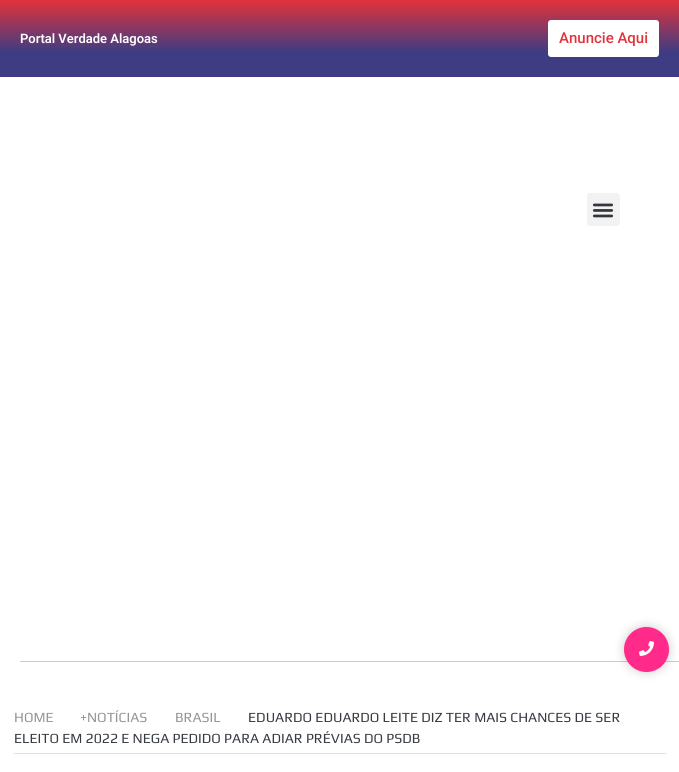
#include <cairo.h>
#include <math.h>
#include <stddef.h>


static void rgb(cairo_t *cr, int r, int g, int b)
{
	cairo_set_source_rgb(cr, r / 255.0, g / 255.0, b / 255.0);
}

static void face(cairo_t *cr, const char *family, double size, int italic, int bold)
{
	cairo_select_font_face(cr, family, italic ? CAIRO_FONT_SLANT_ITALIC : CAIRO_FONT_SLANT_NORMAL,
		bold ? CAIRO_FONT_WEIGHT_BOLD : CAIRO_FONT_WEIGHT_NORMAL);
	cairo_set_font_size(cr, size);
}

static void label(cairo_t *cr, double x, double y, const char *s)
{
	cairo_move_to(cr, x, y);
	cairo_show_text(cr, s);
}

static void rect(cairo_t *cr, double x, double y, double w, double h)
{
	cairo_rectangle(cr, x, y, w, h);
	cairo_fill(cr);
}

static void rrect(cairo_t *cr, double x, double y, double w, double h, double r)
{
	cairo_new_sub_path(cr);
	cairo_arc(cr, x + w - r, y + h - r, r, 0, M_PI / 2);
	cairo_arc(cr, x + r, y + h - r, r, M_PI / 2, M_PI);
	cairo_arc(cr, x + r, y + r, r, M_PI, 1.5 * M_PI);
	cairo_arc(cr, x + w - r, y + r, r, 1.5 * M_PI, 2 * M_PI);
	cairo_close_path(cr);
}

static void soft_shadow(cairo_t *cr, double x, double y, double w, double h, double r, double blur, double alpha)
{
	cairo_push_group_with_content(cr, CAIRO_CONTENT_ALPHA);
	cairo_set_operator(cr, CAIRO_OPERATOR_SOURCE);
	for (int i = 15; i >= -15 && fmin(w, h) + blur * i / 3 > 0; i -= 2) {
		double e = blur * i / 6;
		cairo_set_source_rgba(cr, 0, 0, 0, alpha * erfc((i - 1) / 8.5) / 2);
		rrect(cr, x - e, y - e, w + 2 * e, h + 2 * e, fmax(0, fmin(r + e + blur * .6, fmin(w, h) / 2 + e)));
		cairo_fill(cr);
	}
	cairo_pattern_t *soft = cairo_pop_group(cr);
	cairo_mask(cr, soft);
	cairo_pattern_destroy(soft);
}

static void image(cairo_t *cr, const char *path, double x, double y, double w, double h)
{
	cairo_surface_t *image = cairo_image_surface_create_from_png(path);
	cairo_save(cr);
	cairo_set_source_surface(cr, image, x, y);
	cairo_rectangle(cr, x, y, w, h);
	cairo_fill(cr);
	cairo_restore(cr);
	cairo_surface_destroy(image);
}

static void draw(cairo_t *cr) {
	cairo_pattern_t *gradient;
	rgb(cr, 255, 255, 255);
	cairo_paint(cr);
	gradient = cairo_pattern_create_linear(340, 0, 340, 77);
	cairo_pattern_add_color_stop_rgba(gradient, 0, 0.886, 0.196, 0.231, 1);
	cairo_pattern_add_color_stop_rgba(gradient, 0.68, 0.243, 0.235, 0.514, 1);
	cairo_set_source(cr, gradient);
	cairo_pattern_destroy(gradient);
	rect(cr, 0, 0, 679, 77);
	face(cr, "Roboto SemiBold", 13, 0, 0);
	rgb(cr, 255, 255, 255);
	label(cr, 20, 43, "Portal Verdade Alagoas");
	rrect(cr, 548, 20, 111, 37, 3);
	cairo_fill(cr);
	face(cr, "Roboto Medium", 15, 0, 0);
	rgb(cr, 226, 50, 59);
	label(cr, 559, 43, "Anuncie Aqui");
	rgb(cr, 242, 242, 242);
	rrect(cr, 587, 193, 33, 33, 3);
	cairo_fill(cr);
	image(cr, "image0.png", 592, 203, 22, 15);
	rgb(cr, 204, 204, 204);
	rect(cr, 20, 661, 659, 1);
	rgb(cr, 0, 0, 0);
	soft_shadow(cr, 624, 627, 45, 45, 22.5, 5, 0.2);
	rgb(cr, 255, 42, 137);
	cairo_arc(cr, 646.5, 649.5, 22.5, 0, 2 * M_PI);
	cairo_fill(cr);
	image(cr, "image1.png", 639, 641, 15, 15);
	rgb(cr, 224, 224, 224);
	rect(cr, 14, 753, 652, 1);
	face(cr, "Play", 14, 0, 0);
	rgb(cr, 149, 149, 149);
	label(cr, 14, 722, "HOME");
	label(cr, 80, 722, "+NOTÍCIAS");
	label(cr, 175, 722, "BRASIL");
	rgb(cr, 55, 60, 67);
	label(cr, 248, 722, "EDUARDO EDUARDO LEITE DIZ TER MAIS CHANCES DE SER");
	label(cr, 14, 743, "ELEITO EM 2022 E NEGA PEDIDO PARA ADIAR PRÉVIAS DO PSDB");
}

int main(void) {
	cairo_surface_t *surface = cairo_image_surface_create(CAIRO_FORMAT_RGB24, 679, 772);
	cairo_t *cr = cairo_create(surface);
	cairo_font_options_t *options = cairo_font_options_create();
	cairo_font_options_set_hint_metrics(options, CAIRO_HINT_METRICS_OFF);
	cairo_font_options_set_hint_style(options, CAIRO_HINT_STYLE_NONE);
	cairo_set_font_options(cr, options);
	cairo_set_miter_limit(cr, 4);
	draw(cr);
	cairo_surface_write_to_png(surface, "render.png");
	cairo_font_options_destroy(options);
	cairo_destroy(cr);
	cairo_surface_destroy(surface);
	return 0;
}
